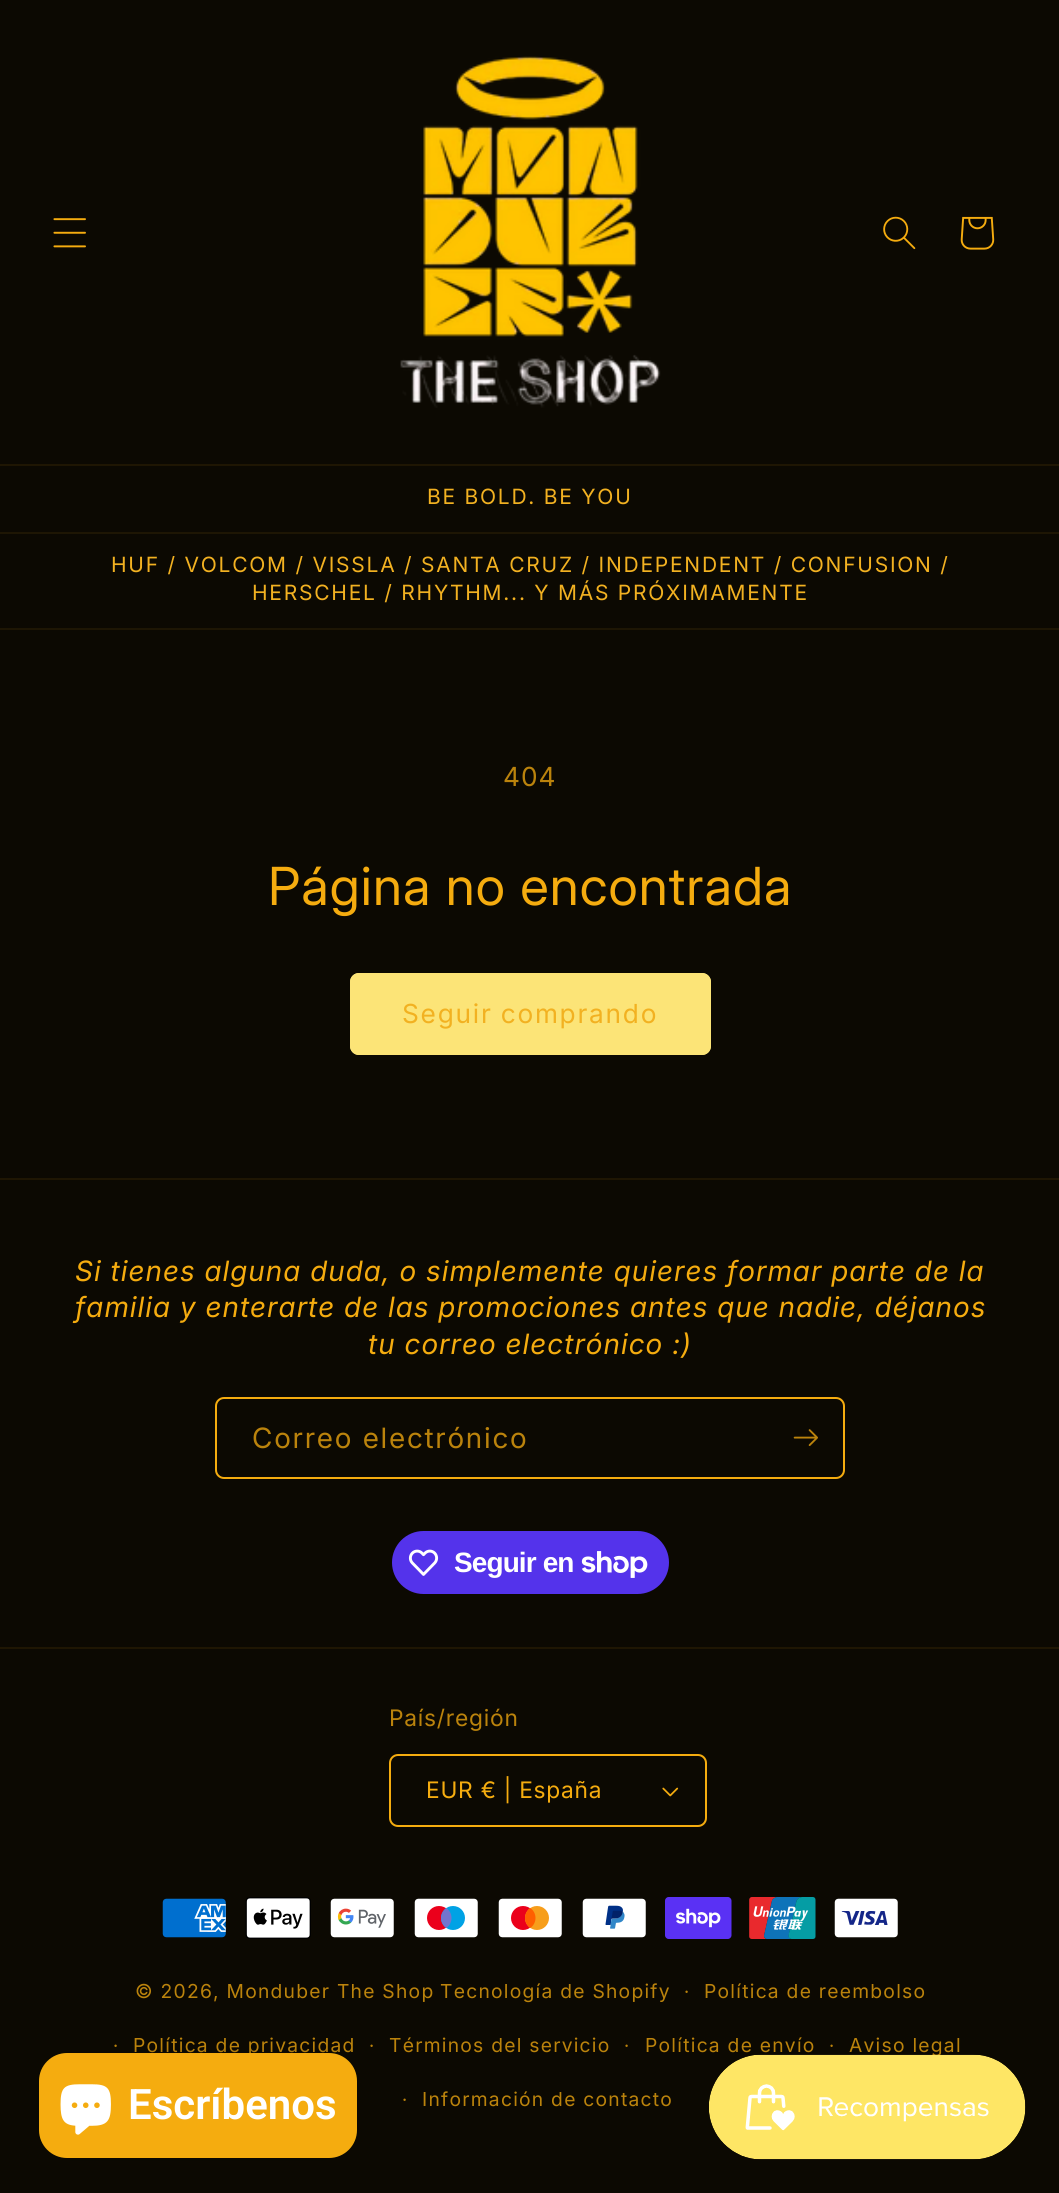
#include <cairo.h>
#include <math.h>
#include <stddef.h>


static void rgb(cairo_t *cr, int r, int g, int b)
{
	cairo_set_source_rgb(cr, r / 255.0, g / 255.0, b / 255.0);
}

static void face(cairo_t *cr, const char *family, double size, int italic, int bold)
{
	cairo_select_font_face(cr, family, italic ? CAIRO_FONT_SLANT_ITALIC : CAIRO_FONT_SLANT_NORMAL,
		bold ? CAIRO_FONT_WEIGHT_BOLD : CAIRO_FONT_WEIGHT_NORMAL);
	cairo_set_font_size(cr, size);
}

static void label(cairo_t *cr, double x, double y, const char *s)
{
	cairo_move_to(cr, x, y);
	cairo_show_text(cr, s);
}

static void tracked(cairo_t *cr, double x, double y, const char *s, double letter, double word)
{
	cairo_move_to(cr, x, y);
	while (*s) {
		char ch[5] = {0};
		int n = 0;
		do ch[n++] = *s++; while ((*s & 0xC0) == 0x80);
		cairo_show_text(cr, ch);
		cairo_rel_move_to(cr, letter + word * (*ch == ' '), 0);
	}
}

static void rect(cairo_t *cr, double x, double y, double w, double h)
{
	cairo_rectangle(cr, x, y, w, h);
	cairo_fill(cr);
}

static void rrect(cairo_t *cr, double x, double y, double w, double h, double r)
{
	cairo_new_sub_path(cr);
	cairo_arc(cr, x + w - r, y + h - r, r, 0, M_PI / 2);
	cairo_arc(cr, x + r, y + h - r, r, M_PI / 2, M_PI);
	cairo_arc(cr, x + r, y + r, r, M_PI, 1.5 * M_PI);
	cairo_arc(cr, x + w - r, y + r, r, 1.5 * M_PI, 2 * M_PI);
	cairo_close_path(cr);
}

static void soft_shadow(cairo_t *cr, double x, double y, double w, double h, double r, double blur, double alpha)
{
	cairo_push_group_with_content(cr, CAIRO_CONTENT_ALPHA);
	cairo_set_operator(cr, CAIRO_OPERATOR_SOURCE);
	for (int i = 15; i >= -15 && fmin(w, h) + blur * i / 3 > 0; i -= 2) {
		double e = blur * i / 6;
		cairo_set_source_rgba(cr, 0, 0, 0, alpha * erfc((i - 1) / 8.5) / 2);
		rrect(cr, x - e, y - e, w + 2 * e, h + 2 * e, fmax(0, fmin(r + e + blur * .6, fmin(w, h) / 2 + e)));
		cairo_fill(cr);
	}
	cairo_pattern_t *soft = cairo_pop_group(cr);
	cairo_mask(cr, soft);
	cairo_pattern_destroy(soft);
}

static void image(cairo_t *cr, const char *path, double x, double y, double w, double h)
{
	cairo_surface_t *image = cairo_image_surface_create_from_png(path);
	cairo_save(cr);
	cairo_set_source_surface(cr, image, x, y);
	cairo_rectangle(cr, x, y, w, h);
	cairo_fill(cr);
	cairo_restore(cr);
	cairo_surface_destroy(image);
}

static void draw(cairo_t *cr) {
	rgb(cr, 12, 9, 2);
	cairo_paint(cr);
	rgb(cr, 31, 22, 3);
	rect(cr, 0, 464, 1059, 2);
	image(cr, "image0.png", 53, 218, 33, 30);
	image(cr, "image1.png", 400, 56, 261, 352);
	image(cr, "image2.png", 883, 216, 33, 34);
	image(cr, "image3.png", 960, 216, 35, 34);
	rgb(cr, 30, 22, 4);
	rect(cr, 0, 532, 1059, 2);
	face(cr, "Inter", 21, 0, 0);
	rgb(cr, 242, 177, 33);
	tracked(cr, 427, 504, "BE BOLD. BE YOU", 1.75, 0);
	rgb(cr, 30, 22, 4);
	rect(cr, 0, 628, 1059, 2);
	rgb(cr, 242, 177, 33);
	tracked(cr, 111, 572, "HUF / VOLCOM / VISSLA / SANTA CRUZ / INDEPENDENT / CONFUSION /", 1.75, 0);
	tracked(cr, 252, 600, "HERSCHEL / RHYTHM... Y MÁS PRÓXIMAMENTE", 1.75, 0);
	face(cr, "Inter", 26.25, 0, 0);
	rgb(cr, 187, 131, 12);
	tracked(cr, 503, 786, "404", 1.05, 0);
	face(cr, "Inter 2", 52.5, 0, 0);
	rgb(cr, 245, 172, 15);
	tracked(cr, 268, 905, "Página no encontrada", 1.05, 0);
	rgb(cr, 252, 228, 119);
	rrect(cr, 350, 973, 361, 82, 9);
	cairo_fill(cr);
	rrect(cr, 351, 974, 359, 80, 8);
	cairo_stroke(cr);
	face(cr, "Inter", 26.25, 0, 0);
	rgb(cr, 242, 177, 33);
	tracked(cr, 402, 1023, "Seguir comprando", 1.75, -1);
	rgb(cr, 31, 22, 3);
	rect(cr, 0, 1178, 1059, 2);
	face(cr, "Inter", 28, 1, 0);
	rgb(cr, 245, 172, 15);
	tracked(cr, 75, 1281, "Si tienes alguna duda, o simplemente quieres formar parte de la", 1.05, 0);
	tracked(cr, 75, 1317, "familia y enterarte de las promociones antes que nadie, déjanos", 1.05, 0);
	tracked(cr, 368, 1354, "tu correo electrónico :)", 1.05, 0);
	rrect(cr, 216, 1398, 628, 80, 8);
	cairo_stroke(cr);
	face(cr, "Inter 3", 28, 0, 0);
	rgb(cr, 187, 131, 12);
	tracked(cr, 252, 1448, "Correo electrónico", 1.75, 0);
	image(cr, "image4.png", 793, 1429, 25, 17);
	rgb(cr, 84, 51, 235);
	rrect(cr, 392, 1531, 277, 63, 31.5);
	cairo_fill(cr);
	image(cr, "image5.png", 408, 1549, 31, 27);
	face(cr, "Liberation Sans", 28, 0, 1);
	rgb(cr, 255, 255, 255);
	tracked(cr, 454, 1572, "Seguir en", -0.9, 0);
	image(cr, "image6.png", 581, 1551, 67, 27);
	rgb(cr, 31, 22, 3);
	rect(cr, 0, 1647, 1059, 2);
	face(cr, "Inter", 22.75, 0, 0);
	rgb(cr, 187, 131, 12);
	tracked(cr, 389, 1726, "País/región", 0.75, 0);
	image(cr, "image7.png", 662, 1787, 17, 10);
	rrect(cr, 390, 1755, 316, 71, 8);
	rgb(cr, 245, 172, 15);
	cairo_stroke(cr);
	tracked(cr, 426, 1798, "EUR € | España", 0.75, 0);
	image(cr, "image8.png", 162, 1898, 64, 40);
	image(cr, "image9.png", 245, 1897, 66, 42);
	image(cr, "image10.png", 330, 1898, 64, 40);
	image(cr, "image11.png", 414, 1898, 64, 40);
	image(cr, "image12.png", 498, 1898, 64, 40);
	image(cr, "image13.png", 582, 1898, 64, 40);
	image(cr, "image14.png", 665, 1897, 67, 42);
	image(cr, "image15.png", 749, 1897, 67, 42);
	image(cr, "image16.png", 834, 1898, 64, 40);
	face(cr, "Inter", 18, 0, 0);
	rgb(cr, 187, 131, 12);
	tracked(cr, 684, 1998, "·", 1.25, 0);
	face(cr, "Inter", 19.25, 0, 0);
	tracked(cr, 704, 1998, "Política de reembolso", 1.25, 0);
	face(cr, "Inter", 18, 0, 0);
	tracked(cr, 113, 2052, "·", 1.25, 0);
	face(cr, "Inter", 19.25, 0, 0);
	tracked(cr, 133, 2052, "Política de privacidad", 1.25, 0);
	face(cr, "Inter", 18, 0, 0);
	tracked(cr, 369, 2052, "·", 1.25, 0);
	face(cr, "Inter", 19.25, 0, 0);
	tracked(cr, 389, 2052, "Términos del servicio", 1.25, 0);
	face(cr, "Inter", 18, 0, 0);
	tracked(cr, 624, 2052, "·", 1.25, 0);
	face(cr, "Inter", 19.25, 0, 0);
	tracked(cr, 645, 2052, "Política de envío", 1.25, 0);
	face(cr, "Inter", 18, 0, 0);
	tracked(cr, 829, 2052, "·", 1.25, 0);
	face(cr, "Inter", 19.25, 0, 0);
	tracked(cr, 849, 2052, "Aviso legal", 1.25, 0);
	face(cr, "Inter", 18, 0, 0);
	tracked(cr, 402, 2106, "·", 1.25, 0);
	face(cr, "Inter", 19.25, 0, 0);
	tracked(cr, 422, 2106, "Información de contacto", 1.25, 0);
	tracked(cr, 135, 1998, "© 2026, Monduber The Shop", 1.25, 0);
	tracked(cr, 440, 1998, "Tecnología de Shopify", 1.25, 0);
	rgb(cr, 0, 0, 0);
	soft_shadow(cr, 39, 2053, 318, 105, 28, 4.5, 0.15);
	rgb(cr, 245, 172, 15);
	rrect(cr, 39, 2053, 318, 105, 28);
	cairo_fill(cr);
	image(cr, "image17.png", 60, 2084, 51, 51);
	face(cr, "Roboto SemiBold", 42, 0, 0);
	rgb(cr, 255, 255, 255);
	label(cr, 128, 2119, "Escríbenos");
	image(cr, "image18.png", 709, 2054, 317, 106);
}

int main(void) {
	cairo_surface_t *surface = cairo_image_surface_create(CAIRO_FORMAT_RGB24, 1059, 2193);
	cairo_t *cr = cairo_create(surface);
	cairo_font_options_t *options = cairo_font_options_create();
	cairo_font_options_set_hint_metrics(options, CAIRO_HINT_METRICS_OFF);
	cairo_font_options_set_hint_style(options, CAIRO_HINT_STYLE_NONE);
	cairo_set_font_options(cr, options);
	cairo_set_miter_limit(cr, 4);
	draw(cr);
	cairo_surface_write_to_png(surface, "render.png");
	cairo_font_options_destroy(options);
	cairo_destroy(cr);
	cairo_surface_destroy(surface);
	return 0;
}
